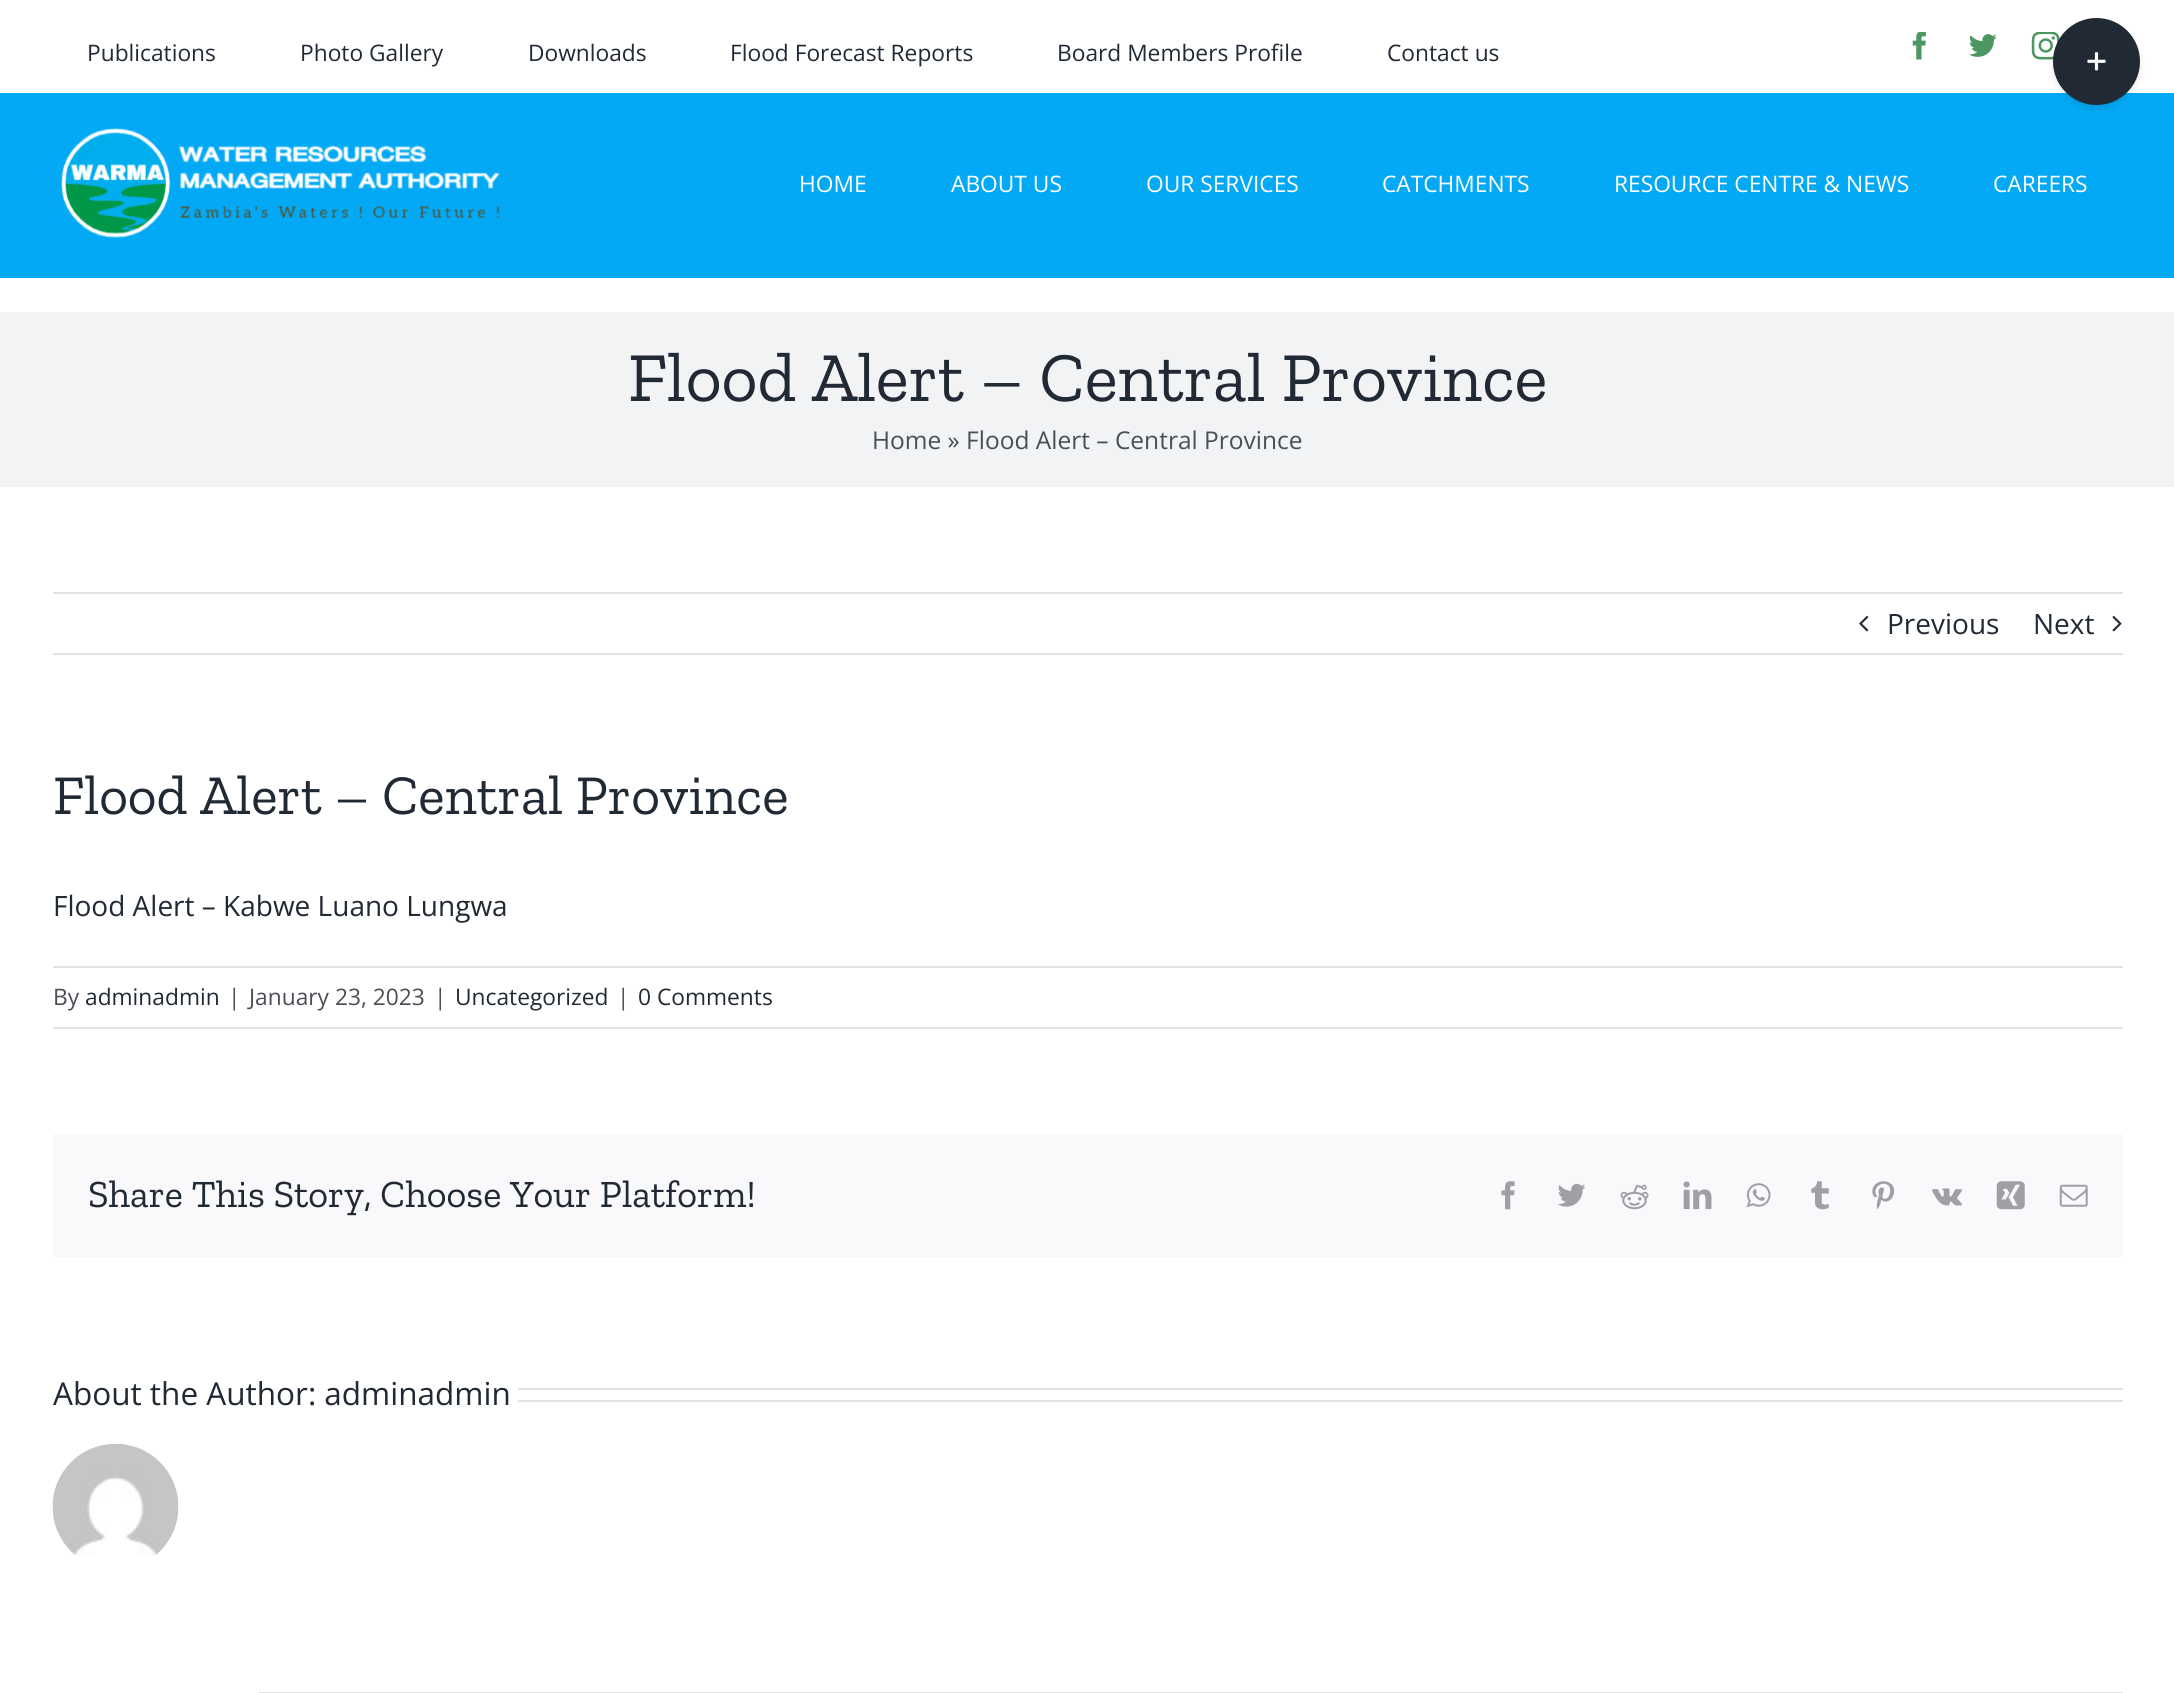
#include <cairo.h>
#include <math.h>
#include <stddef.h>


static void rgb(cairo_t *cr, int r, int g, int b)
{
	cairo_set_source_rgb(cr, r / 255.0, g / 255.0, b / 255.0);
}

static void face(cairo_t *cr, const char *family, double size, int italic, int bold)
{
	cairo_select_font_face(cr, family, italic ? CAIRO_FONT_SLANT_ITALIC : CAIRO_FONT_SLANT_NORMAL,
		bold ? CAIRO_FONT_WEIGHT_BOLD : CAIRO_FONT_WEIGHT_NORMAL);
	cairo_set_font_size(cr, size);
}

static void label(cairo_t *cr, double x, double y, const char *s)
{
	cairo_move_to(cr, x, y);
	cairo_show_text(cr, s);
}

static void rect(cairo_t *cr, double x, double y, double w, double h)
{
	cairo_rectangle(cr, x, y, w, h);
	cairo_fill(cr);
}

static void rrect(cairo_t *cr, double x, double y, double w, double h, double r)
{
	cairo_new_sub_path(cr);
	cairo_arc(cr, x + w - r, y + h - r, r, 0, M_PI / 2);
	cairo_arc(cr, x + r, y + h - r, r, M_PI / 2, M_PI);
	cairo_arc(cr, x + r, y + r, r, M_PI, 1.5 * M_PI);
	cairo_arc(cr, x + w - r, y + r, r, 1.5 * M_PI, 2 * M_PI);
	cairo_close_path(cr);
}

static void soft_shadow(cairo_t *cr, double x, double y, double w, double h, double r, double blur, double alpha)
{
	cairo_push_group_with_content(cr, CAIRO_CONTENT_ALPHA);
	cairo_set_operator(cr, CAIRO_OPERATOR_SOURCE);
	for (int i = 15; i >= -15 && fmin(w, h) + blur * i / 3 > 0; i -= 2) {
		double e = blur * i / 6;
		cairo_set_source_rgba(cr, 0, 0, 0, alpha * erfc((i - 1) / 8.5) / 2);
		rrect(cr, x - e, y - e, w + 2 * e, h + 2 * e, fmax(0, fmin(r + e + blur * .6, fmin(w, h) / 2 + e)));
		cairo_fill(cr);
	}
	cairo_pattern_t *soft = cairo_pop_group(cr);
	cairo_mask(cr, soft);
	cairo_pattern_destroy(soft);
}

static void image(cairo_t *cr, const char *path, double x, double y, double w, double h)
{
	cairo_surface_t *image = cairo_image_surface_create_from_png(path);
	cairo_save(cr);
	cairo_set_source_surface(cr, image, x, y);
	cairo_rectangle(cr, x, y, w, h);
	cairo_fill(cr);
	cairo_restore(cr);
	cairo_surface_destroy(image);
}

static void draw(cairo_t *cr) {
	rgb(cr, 255, 255, 255);
	cairo_paint(cr);
	face(cr, "Open Sans", 22.75, 0, 0);
	rgb(cr, 33, 41, 52);
	label(cr, 87, 61, "Publications");
	label(cr, 300, 61, "Photo Gallery");
	label(cr, 528, 61, "Downloads");
	label(cr, 730, 61, "Flood Forecast Reports");
	label(cr, 1057, 61, "Board Members Profile");
	label(cr, 1387, 61, "Contact us");
	image(cr, "image0.png", 1912, 32, 14, 28);
	image(cr, "image1.png", 1969, 34, 28, 23);
	image(cr, "image2.png", 2031, 32, 29, 28);
	rgb(cr, 3, 169, 244);
	rect(cr, 0, 93, 2174, 185);
	image(cr, "image3.png", 61, 128, 439, 110);
	rgb(cr, 255, 255, 255);
	label(cr, 799, 192, "HOME");
	label(cr, 951, 192, "ABOUT US");
	label(cr, 1146, 192, "OUR SERVICES");
	label(cr, 1382, 192, "CATCHMENTS");
	label(cr, 1614, 192, "RESOURCE CENTRE & NEWS");
	label(cr, 1993, 192, "CAREERS");
	rgb(cr, 0, 0, 0);
	soft_shadow(cr, 2056, 26, 81, 81, 40.5, 4.5, 0.14);
	rgb(cr, 33, 41, 52);
	cairo_arc(cr, 2096.5, 61.5, 43.5, 0, 2 * M_PI);
	cairo_fill(cr);
	image(cr, "image4.png", 2087, 52, 19, 19);
	rgb(cr, 242, 243, 245);
	rect(cr, 0, 312, 2174, 175);
	face(cr, "Zilla Slab", 70, 0, 0);
	rgb(cr, 33, 41, 52);
	label(cr, 628, 401, "Flood Alert – Central Province");
	face(cr, "Open Sans", 24.5, 0, 0);
	rgb(cr, 74, 78, 87);
	label(cr, 872, 449, "Home » Flood Alert – Central Province");
	rgb(cr, 226, 226, 226);
	rect(cr, 53, 592, 2070, 2);
	rect(cr, 53, 653, 2070, 2);
	image(cr, "image5.png", 1859, 615, 10, 17);
	face(cr, "Open Sans", 28, 0, 0);
	rgb(cr, 33, 41, 52);
	label(cr, 1887, 634, "Previous");
	label(cr, 2033, 634, "Next");
	image(cr, "image6.png", 2112, 615, 10, 17);
	face(cr, "Zilla Slab", 56, 0, 0);
	label(cr, 53, 814, "Flood Alert – Central Province");
	face(cr, "Open Sans", 28, 0, 0);
	label(cr, 53, 916, "Flood Alert – Kabwe Luano Lungwa");
	rgb(cr, 226, 226, 226);
	rect(cr, 53, 966, 2070, 2);
	rect(cr, 53, 1027, 2070, 2);
	face(cr, "Open Sans", 22.75, 0, 0);
	rgb(cr, 74, 78, 87);
	label(cr, 53, 1005, "By");
	rgb(cr, 33, 41, 52);
	label(cr, 85, 1005, "adminadmin");
	rgb(cr, 74, 78, 87);
	label(cr, 228, 1005, "|");
	label(cr, 249, 1005, "January 23, 2023");
	label(cr, 434, 1005, "|");
	rgb(cr, 33, 41, 52);
	label(cr, 455, 1005, "Uncategorized");
	rgb(cr, 74, 78, 87);
	label(cr, 617, 1005, "|");
	rgb(cr, 33, 41, 52);
	label(cr, 638, 1005, "0 Comments");
	rgb(cr, 249, 249, 251);
	rect(cr, 53, 1134, 2070, 123);
	face(cr, "Zilla Slab", 38.5, 0, 0);
	rgb(cr, 33, 41, 52);
	label(cr, 88, 1207, "Share This Story, Choose Your Platform!");
	image(cr, "image7.png", 1501, 1181, 14, 29);
	image(cr, "image8.png", 1557, 1183, 29, 24);
	image(cr, "image9.png", 1620, 1184, 29, 26);
	image(cr, "image10.png", 1683, 1181, 29, 29);
	image(cr, "image11.png", 1746, 1183, 25, 25);
	image(cr, "image12.png", 1811, 1181, 18, 29);
	image(cr, "image13.png", 1872, 1181, 22, 28);
	image(cr, "image14.png", 1932, 1188, 30, 18);
	image(cr, "image15.png", 1996, 1181, 29, 29);
	image(cr, "image16.png", 2059, 1184, 29, 23);
	face(cr, "Open Sans", 31.5, 0, 0);
	label(cr, 53, 1405, "About the Author: adminadmin");
	rgb(cr, 226, 226, 226);
	rect(cr, 518, 1388, 1605, 2);
	rect(cr, 518, 1400, 1605, 2);
	image(cr, "image17.png", 52, 1444, 127, 112);
	rect(cr, 259, 1692, 1864, 1);
}

int main(void) {
	cairo_surface_t *surface = cairo_image_surface_create(CAIRO_FORMAT_RGB24, 2174, 1693);
	cairo_t *cr = cairo_create(surface);
	cairo_font_options_t *options = cairo_font_options_create();
	cairo_font_options_set_hint_metrics(options, CAIRO_HINT_METRICS_OFF);
	cairo_font_options_set_hint_style(options, CAIRO_HINT_STYLE_NONE);
	cairo_set_font_options(cr, options);
	cairo_set_miter_limit(cr, 4);
	draw(cr);
	cairo_surface_write_to_png(surface, "render.png");
	cairo_font_options_destroy(options);
	cairo_destroy(cr);
	cairo_surface_destroy(surface);
	return 0;
}
